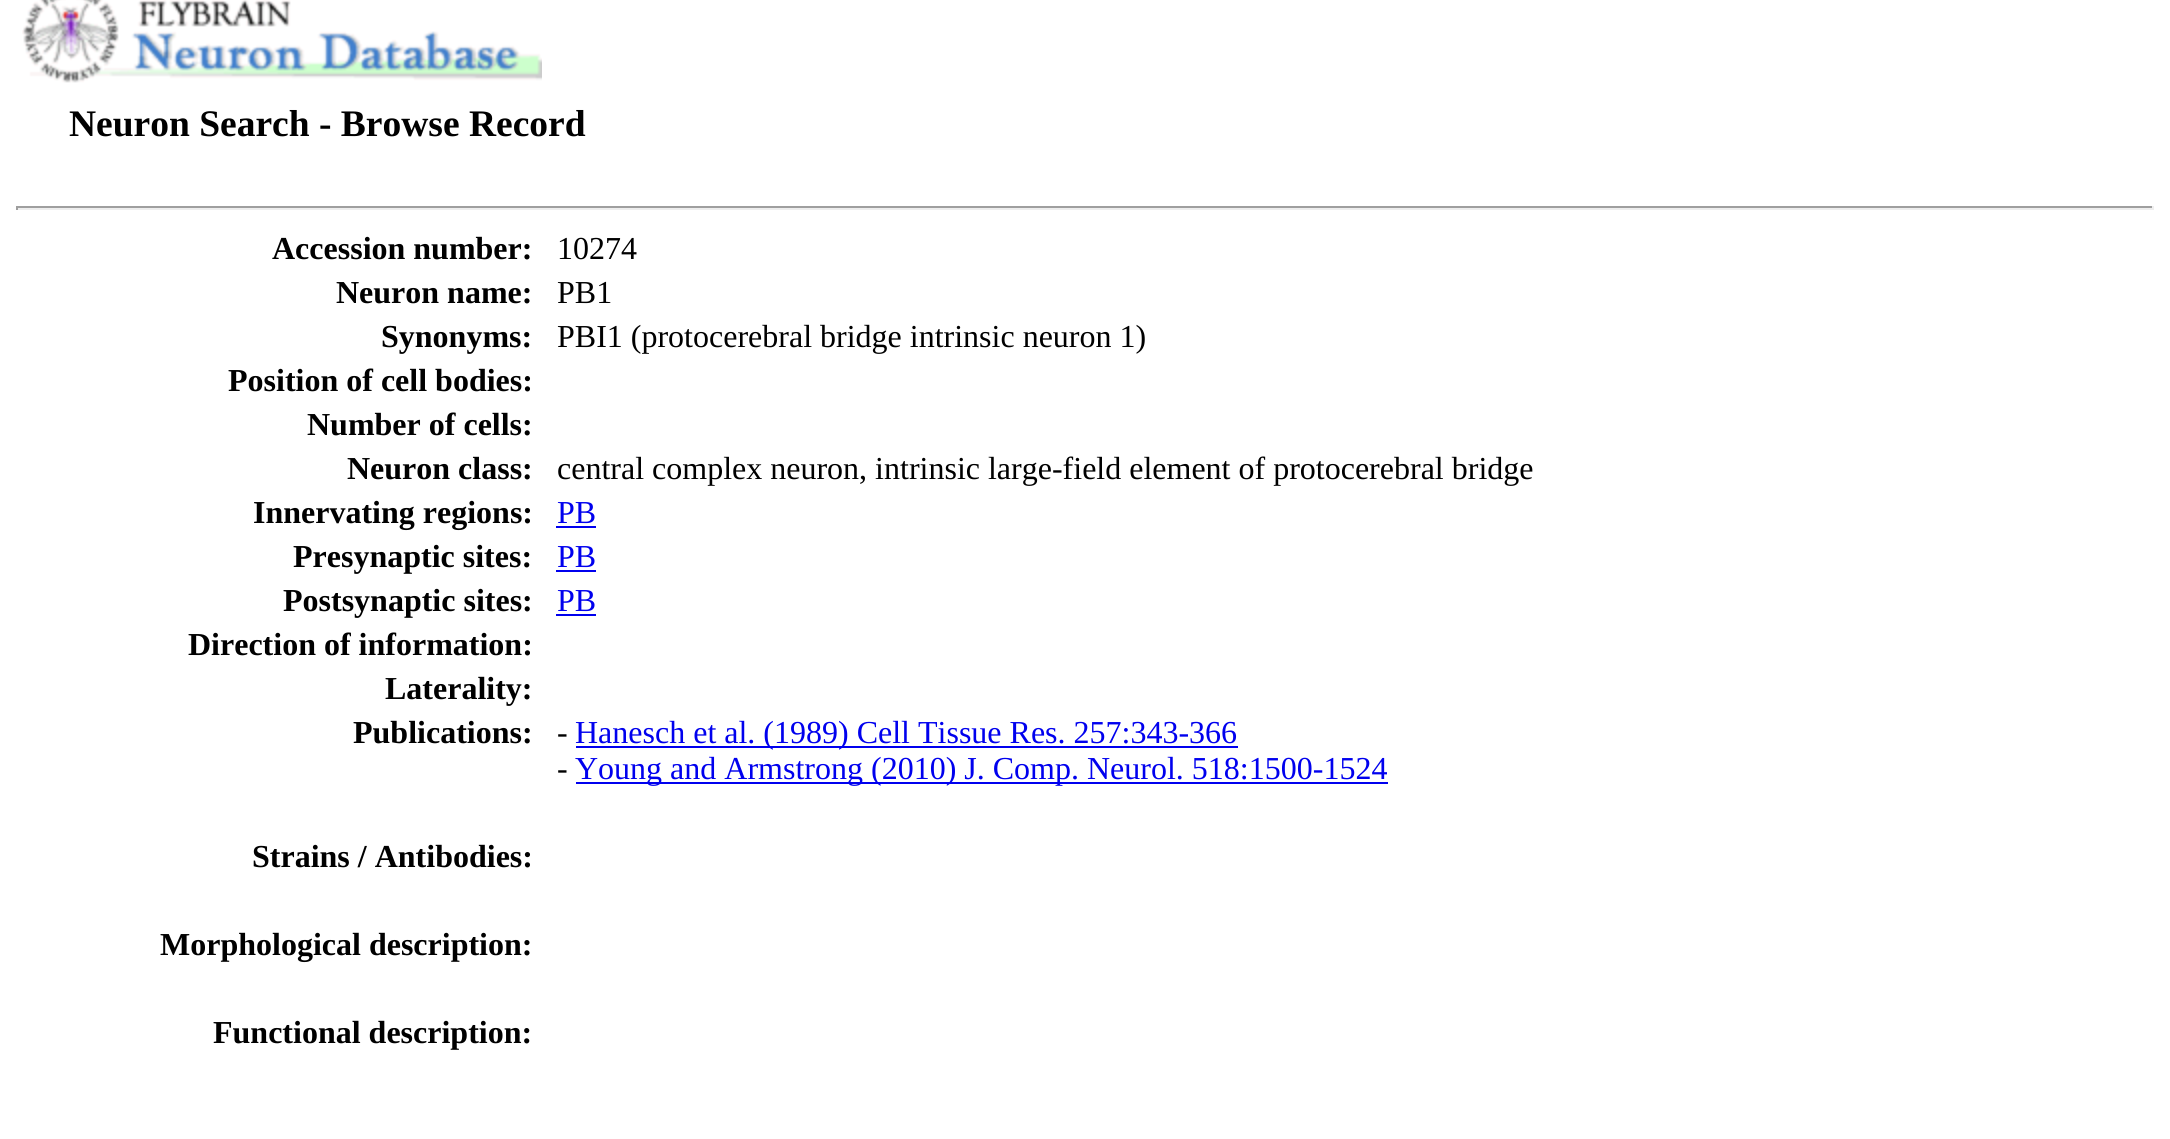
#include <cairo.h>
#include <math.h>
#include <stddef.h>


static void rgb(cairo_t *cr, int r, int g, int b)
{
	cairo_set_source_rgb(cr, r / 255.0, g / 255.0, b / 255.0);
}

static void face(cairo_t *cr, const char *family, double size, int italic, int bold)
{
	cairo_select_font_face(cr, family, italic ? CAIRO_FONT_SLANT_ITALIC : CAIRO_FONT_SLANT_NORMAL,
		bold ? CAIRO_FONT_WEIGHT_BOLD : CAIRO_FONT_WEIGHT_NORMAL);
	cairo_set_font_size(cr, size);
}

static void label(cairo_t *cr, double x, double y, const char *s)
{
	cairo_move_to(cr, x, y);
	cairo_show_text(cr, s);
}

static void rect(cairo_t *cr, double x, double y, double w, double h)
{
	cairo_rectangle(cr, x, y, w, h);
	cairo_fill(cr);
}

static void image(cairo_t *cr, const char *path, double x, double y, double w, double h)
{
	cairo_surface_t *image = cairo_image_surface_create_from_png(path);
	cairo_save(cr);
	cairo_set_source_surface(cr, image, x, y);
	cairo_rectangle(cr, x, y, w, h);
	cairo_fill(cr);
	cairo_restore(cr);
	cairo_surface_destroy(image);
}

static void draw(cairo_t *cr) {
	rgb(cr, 255, 255, 255);
	cairo_paint(cr);
	image(cr, "image0.png", 22, 0, 520, 83);
	face(cr, "Liberation Serif", 37.5, 0, 1);
	rgb(cr, 0, 0, 0);
	label(cr, 69, 136, "Neuron Search - Browse Record");
	rgb(cr, 159, 159, 159);
	rect(cr, 16, 206, 2138, 2);
	rgb(cr, 238, 238, 238);
	rect(cr, 2152, 206, 2, 4);
	rect(cr, 16, 208, 2138, 2);
	rgb(cr, 159, 159, 159);
	rect(cr, 16, 206, 2, 4);
	face(cr, "Liberation Serif", 32, 0, 1);
	rgb(cr, 0, 0, 0);
	label(cr, 272, 259, "Accession number:");
	face(cr, "Liberation Serif", 32, 0, 0);
	label(cr, 557, 259, "10274");
	face(cr, "Liberation Serif", 32, 0, 1);
	label(cr, 336, 303, "Neuron name:");
	face(cr, "Liberation Serif", 32, 0, 0);
	label(cr, 557, 303, "PB1");
	face(cr, "Liberation Serif", 32, 0, 1);
	label(cr, 381, 347, "Synonyms:");
	face(cr, "Liberation Serif", 32, 0, 0);
	label(cr, 557, 347, "PBI1 (protocerebral bridge intrinsic neuron 1)");
	face(cr, "Liberation Serif", 32, 0, 1);
	label(cr, 228, 391, "Position of cell bodies:");
	label(cr, 307, 435, "Number of cells:");
	label(cr, 347, 479, "Neuron class:");
	face(cr, "Liberation Serif", 32, 0, 0);
	label(cr, 557, 479, "central complex neuron, intrinsic large-field element of protocerebral bridge");
	face(cr, "Liberation Serif", 32, 0, 1);
	label(cr, 253, 523, "Innervating regions:");
	face(cr, "Liberation Serif", 32, 0, 0);
	rgb(cr, 0, 0, 238);
	label(cr, 557, 523, "PB");
	rect(cr, 556, 526, 40, 2);
	face(cr, "Liberation Serif", 32, 0, 1);
	rgb(cr, 0, 0, 0);
	label(cr, 293, 567, "Presynaptic sites:");
	face(cr, "Liberation Serif", 32, 0, 0);
	rgb(cr, 0, 0, 238);
	label(cr, 557, 567, "PB");
	rect(cr, 556, 570, 40, 2);
	face(cr, "Liberation Serif", 32, 0, 1);
	rgb(cr, 0, 0, 0);
	label(cr, 283, 611, "Postsynaptic sites:");
	face(cr, "Liberation Serif", 32, 0, 0);
	rgb(cr, 0, 0, 238);
	label(cr, 557, 611, "PB");
	rect(cr, 556, 614, 40, 2);
	face(cr, "Liberation Serif", 32, 0, 1);
	rgb(cr, 0, 0, 0);
	label(cr, 188, 655, "Direction of information:");
	label(cr, 385, 699, "Laterality:");
	label(cr, 353, 743, "Publications:");
	face(cr, "Liberation Serif", 32, 0, 0);
	label(cr, 557, 743, "-");
	rgb(cr, 0, 0, 238);
	rect(cr, 576, 746, 662, 2);
	label(cr, 575, 743, "Hanesch et al. (1989) Cell Tissue Res. 257:343-366");
	rgb(cr, 0, 0, 0);
	label(cr, 557, 779, "-");
	rgb(cr, 0, 0, 238);
	rect(cr, 576, 782, 812, 2);
	label(cr, 575, 779, "Young and Armstrong (2010) J. Comp. Neurol. 518:1500-1524");
	face(cr, "Liberation Serif", 32, 0, 1);
	rgb(cr, 0, 0, 0);
	label(cr, 252, 867, "Strains / Antibodies:");
	label(cr, 160, 955, "Morphological description:");
	label(cr, 213, 1043, "Functional description:");
}

int main(void) {
	cairo_surface_t *surface = cairo_image_surface_create(CAIRO_FORMAT_RGB24, 2170, 1139);
	cairo_t *cr = cairo_create(surface);
	cairo_font_options_t *options = cairo_font_options_create();
	cairo_font_options_set_hint_metrics(options, CAIRO_HINT_METRICS_OFF);
	cairo_font_options_set_hint_style(options, CAIRO_HINT_STYLE_NONE);
	cairo_set_font_options(cr, options);
	cairo_set_miter_limit(cr, 4);
	draw(cr);
	cairo_surface_write_to_png(surface, "render.png");
	cairo_font_options_destroy(options);
	cairo_destroy(cr);
	cairo_surface_destroy(surface);
	return 0;
}
